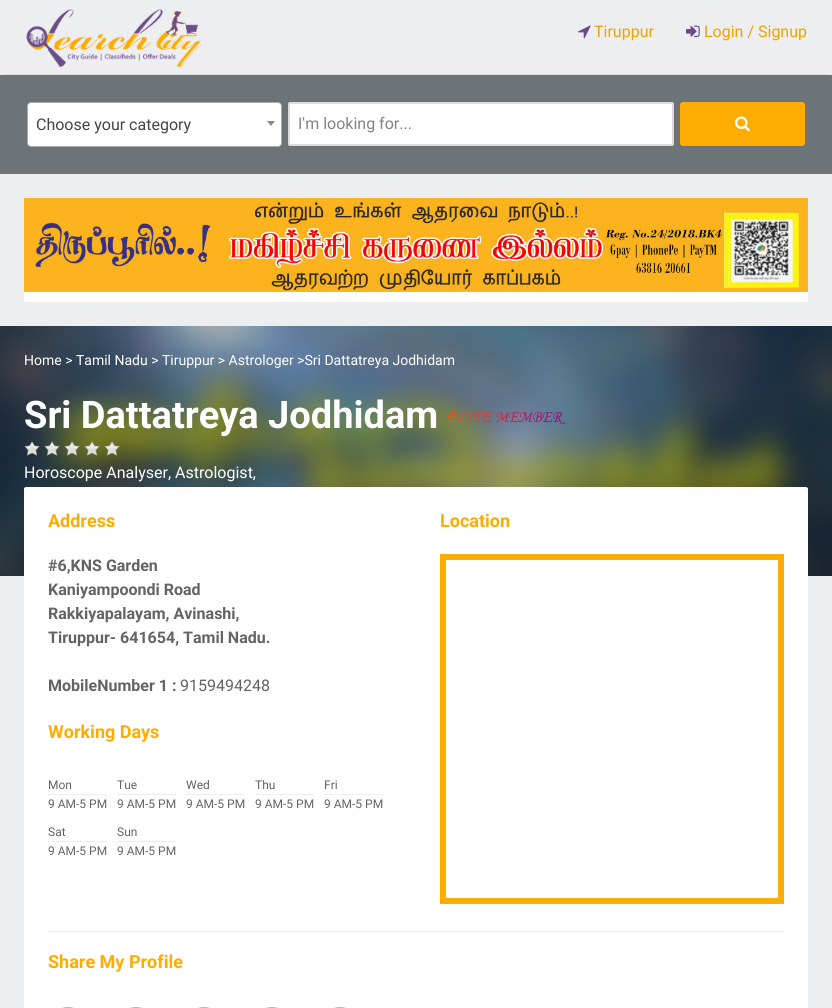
#include <cairo.h>
#include <math.h>
#include <stddef.h>


static void rgb(cairo_t *cr, int r, int g, int b)
{
	cairo_set_source_rgb(cr, r / 255.0, g / 255.0, b / 255.0);
}

static void face(cairo_t *cr, const char *family, double size, int italic, int bold)
{
	cairo_select_font_face(cr, family, italic ? CAIRO_FONT_SLANT_ITALIC : CAIRO_FONT_SLANT_NORMAL,
		bold ? CAIRO_FONT_WEIGHT_BOLD : CAIRO_FONT_WEIGHT_NORMAL);
	cairo_set_font_size(cr, size);
}

static void label(cairo_t *cr, double x, double y, const char *s)
{
	cairo_move_to(cr, x, y);
	cairo_show_text(cr, s);
}

static void rect(cairo_t *cr, double x, double y, double w, double h)
{
	cairo_rectangle(cr, x, y, w, h);
	cairo_fill(cr);
}

static void rrect(cairo_t *cr, double x, double y, double w, double h, double r)
{
	cairo_new_sub_path(cr);
	cairo_arc(cr, x + w - r, y + h - r, r, 0, M_PI / 2);
	cairo_arc(cr, x + r, y + h - r, r, M_PI / 2, M_PI);
	cairo_arc(cr, x + r, y + r, r, M_PI, 1.5 * M_PI);
	cairo_arc(cr, x + w - r, y + r, r, 1.5 * M_PI, 2 * M_PI);
	cairo_close_path(cr);
}

static void image(cairo_t *cr, const char *path, double x, double y, double w, double h)
{
	cairo_surface_t *image = cairo_image_surface_create_from_png(path);
	cairo_save(cr);
	cairo_set_source_surface(cr, image, x, y);
	cairo_rectangle(cr, x, y, w, h);
	cairo_fill(cr);
	cairo_restore(cr);
	cairo_surface_destroy(image);
}

static void draw(cairo_t *cr) {
	rgb(cr, 237, 238, 240);
	cairo_paint(cr);
	rgb(cr, 221, 221, 221);
	rect(cr, 2, 74, 828, 1);
	image(cr, "image0.png", 26, 9, 176, 59);
	image(cr, "image1.png", 578, 25, 13, 14);
	face(cr, "Roboto", 16, 0, 0);
	rgb(cr, 241, 162, 0);
	label(cr, 594, 37, "Tiruppur");
	image(cr, "image2.png", 686, 25, 14, 12);
	label(cr, 704, 37, "Login / Signup");
	rgb(cr, 108, 116, 120);
	rect(cr, 0, 75, 832, 99);
	rgb(cr, 255, 255, 255);
	rrect(cr, 27.5, 102.5, 254, 44, 3.5);
	cairo_fill_preserve(cr);
	rgb(cr, 170, 170, 170);
	cairo_set_line_width(cr, 1);
	cairo_stroke(cr);
	rgb(cr, 68, 68, 68);
	label(cr, 36, 130, "Choose your category");
	rgb(cr, 136, 136, 136);
	cairo_new_path(cr);
	cairo_move_to(cr, 267, 121);
	cairo_line_to(cr, 275, 121);
	cairo_line_to(cr, 271, 126);
	cairo_close_path(cr);
	cairo_fill(cr);
	rgb(cr, 255, 255, 255);
	rrect(cr, 289, 103, 384, 42, 1);
	cairo_fill_preserve(cr);
	rgb(cr, 221, 221, 221);
	cairo_set_line_width(cr, 2);
	cairo_stroke(cr);
	rgb(cr, 130, 130, 130);
	label(cr, 298, 129, "I'm looking for...");
	rgb(cr, 255, 172, 0);
	rrect(cr, 681, 103, 123, 42, 2);
	cairo_fill_preserve(cr);
	cairo_stroke(cr);
	image(cr, "image3.png", 735, 116, 15, 16);
	rgb(cr, 255, 255, 255);
	rect(cr, 24, 292, 784, 10);
	image(cr, "image4.png", 24, 198, 784, 94);
	image(cr, "image5.png", 0, 326, 832, 250);
	face(cr, "Roboto", 14, 0, 0);
	label(cr, 24, 365, "Home > Tamil Nadu > Tiruppur > Astrologer >Sri Dattatreya Jodhidam");
	face(cr, "Roboto", 38, 0, 1);
	label(cr, 24, 428, "Sri Dattatreya Jodhidam");
	image(cr, "image6.png", 448, 411, 117, 13);
	image(cr, "image7.png", 24, 441, 16, 15);
	image(cr, "image8.png", 44, 441, 16, 15);
	image(cr, "image9.png", 64, 441, 16, 15);
	image(cr, "image10.png", 84, 441, 16, 15);
	image(cr, "image11.png", 104, 441, 16, 15);
	face(cr, "Roboto", 16, 0, 0);
	label(cr, 24, 478, "Horoscope Analyser, Astrologist,");
	rrect(cr, 24, 487, 784, 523, 2);
	cairo_fill(cr);
	face(cr, "Roboto", 18, 0, 1);
	rgb(cr, 255, 172, 0);
	label(cr, 48, 527, "Address");
	face(cr, "Roboto", 16, 0, 1);
	rgb(cr, 99, 99, 99);
	label(cr, 48, 571, "#6,KNS Garden");
	label(cr, 48, 595, "Kaniyampoondi Road");
	label(cr, 48, 619, "Rakkiyapalayam, Avinashi,");
	label(cr, 48, 643, "Tiruppur- 641654, Tamil Nadu.");
	label(cr, 48, 691, "MobileNumber 1 :");
	face(cr, "Roboto", 16, 0, 0);
	label(cr, 180, 691, "9159494248");
	face(cr, "Roboto", 18, 0, 1);
	rgb(cr, 255, 172, 0);
	label(cr, 48, 738, "Working Days");
	face(cr, "Roboto", 12, 0, 0);
	rgb(cr, 99, 99, 99);
	label(cr, 48, 789, "Mon");
	rgb(cr, 238, 238, 238);
	rect(cr, 48, 794, 59, 1);
	rgb(cr, 99, 99, 99);
	label(cr, 48, 808, "9 AM-5 PM");
	label(cr, 117, 789, "Tue");
	rgb(cr, 238, 238, 238);
	rect(cr, 117, 794, 59, 1);
	rgb(cr, 99, 99, 99);
	label(cr, 117, 808, "9 AM-5 PM");
	label(cr, 186, 789, "Wed");
	rgb(cr, 238, 238, 238);
	rect(cr, 186, 794, 59, 1);
	rgb(cr, 99, 99, 99);
	label(cr, 186, 808, "9 AM-5 PM");
	label(cr, 255, 789, "Thu");
	rgb(cr, 238, 238, 238);
	rect(cr, 255, 794, 59, 1);
	rgb(cr, 99, 99, 99);
	label(cr, 255, 808, "9 AM-5 PM");
	label(cr, 324, 789, "Fri");
	rgb(cr, 238, 238, 238);
	rect(cr, 324, 794, 60, 1);
	rgb(cr, 99, 99, 99);
	label(cr, 324, 808, "9 AM-5 PM");
	label(cr, 48, 836, "Sat");
	rgb(cr, 238, 238, 238);
	rect(cr, 48, 841, 59, 1);
	rgb(cr, 99, 99, 99);
	label(cr, 48, 855, "9 AM-5 PM");
	label(cr, 117, 836, "Sun");
	rgb(cr, 238, 238, 238);
	rect(cr, 117, 841, 59, 1);
	rgb(cr, 99, 99, 99);
	label(cr, 117, 855, "9 AM-5 PM");
	face(cr, "Roboto", 18, 0, 1);
	rgb(cr, 255, 172, 0);
	label(cr, 440, 527, "Location");
	cairo_rectangle(cr, 443, 557, 338, 344);
	cairo_set_line_width(cr, 6);
	cairo_stroke(cr);
	rgb(cr, 238, 238, 238);
	rect(cr, 48, 931, 736, 1);
	rgb(cr, 255, 172, 0);
	label(cr, 48, 968, "Share My Profile");
	rrect(cr, 48.5, 1007.5, 39, 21, 19.5);
	rgb(cr, 255, 172, 39);
	cairo_set_line_width(cr, 1);
	cairo_stroke(cr);
	rrect(cr, 116.5, 1007.5, 39, 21, 19.5);
	cairo_stroke(cr);
	rrect(cr, 184.5, 1007.5, 39, 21, 19.5);
	cairo_stroke(cr);
	rrect(cr, 252.5, 1007.5, 39, 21, 19.5);
	cairo_stroke(cr);
	rrect(cr, 320.5, 1007.5, 39, 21, 19.5);
	cairo_stroke(cr);
}

int main(void) {
	cairo_surface_t *surface = cairo_image_surface_create(CAIRO_FORMAT_RGB24, 832, 1008);
	cairo_t *cr = cairo_create(surface);
	cairo_font_options_t *options = cairo_font_options_create();
	cairo_font_options_set_hint_metrics(options, CAIRO_HINT_METRICS_OFF);
	cairo_font_options_set_hint_style(options, CAIRO_HINT_STYLE_NONE);
	cairo_set_font_options(cr, options);
	cairo_set_miter_limit(cr, 4);
	draw(cr);
	cairo_surface_write_to_png(surface, "render.png");
	cairo_font_options_destroy(options);
	cairo_destroy(cr);
	cairo_surface_destroy(surface);
	return 0;
}
